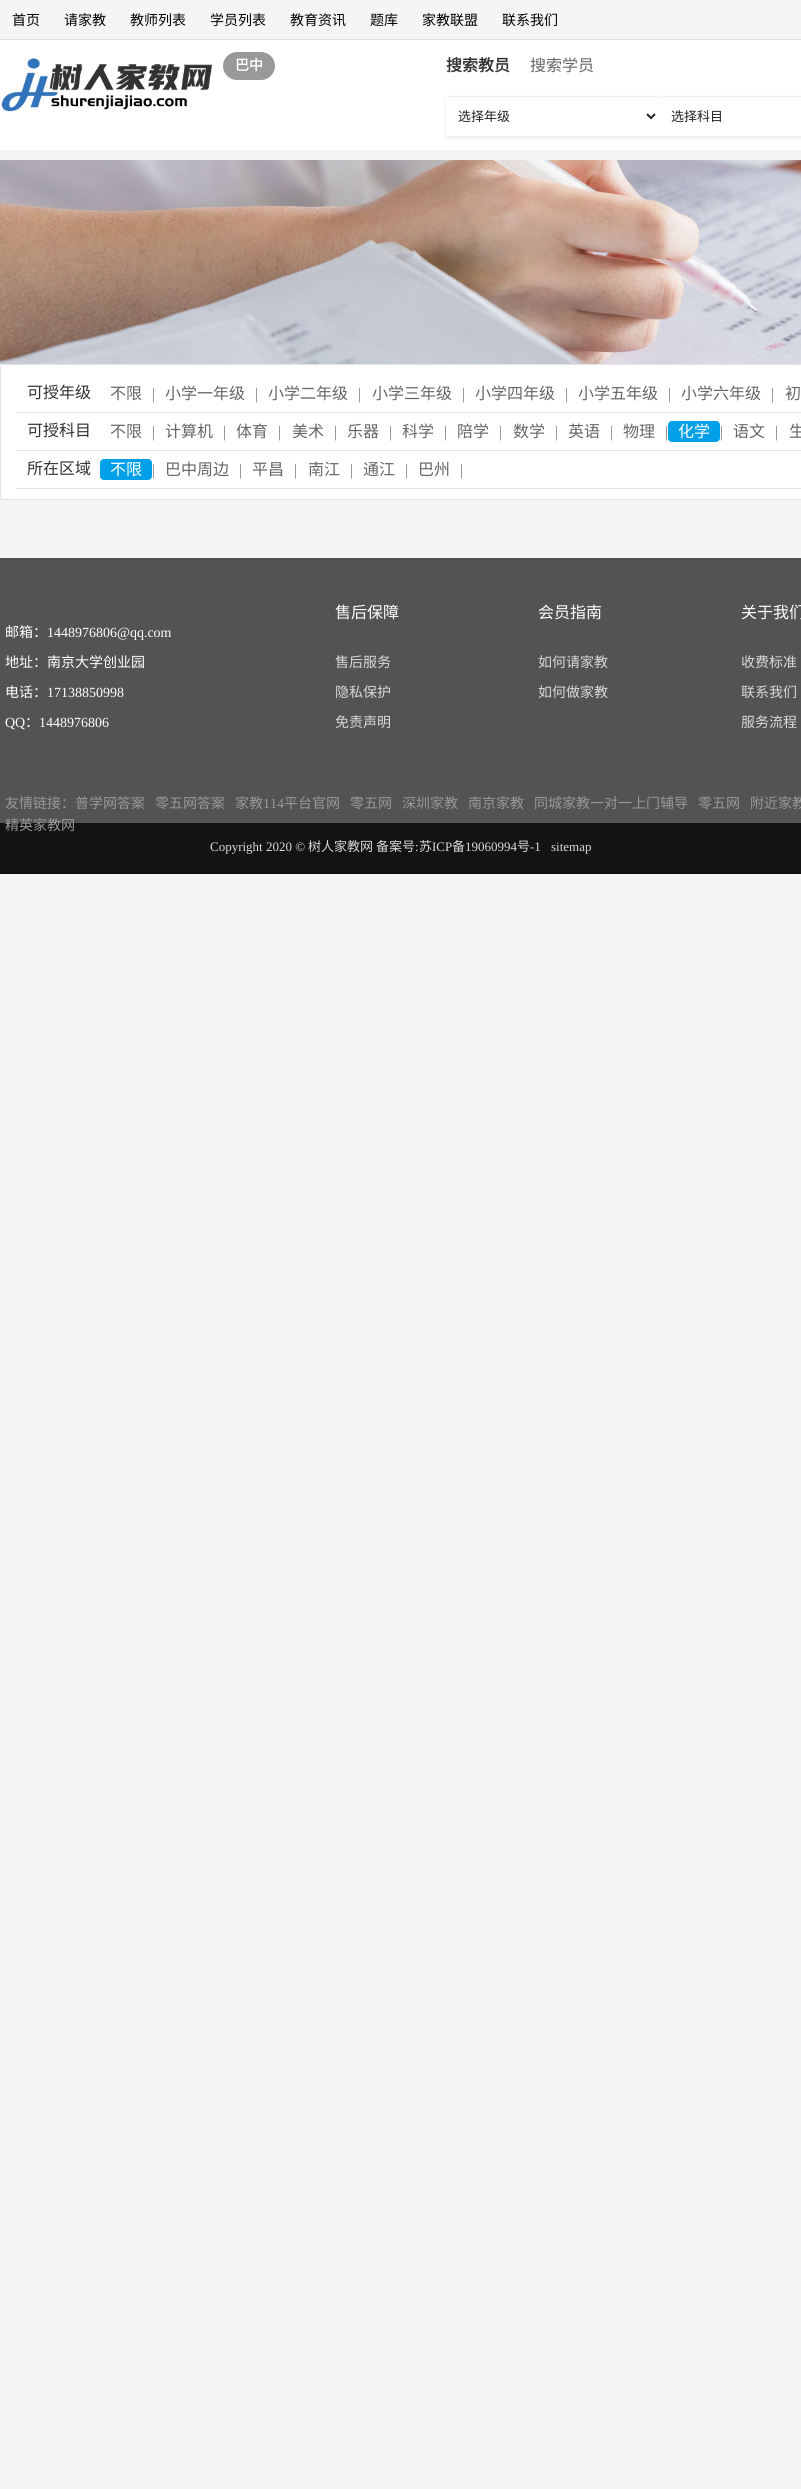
#include <cairo.h>
#include <math.h>
#include <stddef.h>


static void rgb(cairo_t *cr, int r, int g, int b)
{
	cairo_set_source_rgb(cr, r / 255.0, g / 255.0, b / 255.0);
}

static void face(cairo_t *cr, const char *family, double size, int italic, int bold)
{
	cairo_select_font_face(cr, family, italic ? CAIRO_FONT_SLANT_ITALIC : CAIRO_FONT_SLANT_NORMAL,
		bold ? CAIRO_FONT_WEIGHT_BOLD : CAIRO_FONT_WEIGHT_NORMAL);
	cairo_set_font_size(cr, size);
}

static void label(cairo_t *cr, double x, double y, const char *s)
{
	cairo_move_to(cr, x, y);
	cairo_show_text(cr, s);
}

static void rect(cairo_t *cr, double x, double y, double w, double h)
{
	cairo_rectangle(cr, x, y, w, h);
	cairo_fill(cr);
}

static void rrect(cairo_t *cr, double x, double y, double w, double h, double r)
{
	cairo_new_sub_path(cr);
	cairo_arc(cr, x + w - r, y + h - r, r, 0, M_PI / 2);
	cairo_arc(cr, x + r, y + h - r, r, M_PI / 2, M_PI);
	cairo_arc(cr, x + r, y + r, r, M_PI, 1.5 * M_PI);
	cairo_arc(cr, x + w - r, y + r, r, 1.5 * M_PI, 2 * M_PI);
	cairo_close_path(cr);
}

static void soft_shadow(cairo_t *cr, double x, double y, double w, double h, double r, double blur, double alpha)
{
	cairo_push_group_with_content(cr, CAIRO_CONTENT_ALPHA);
	cairo_set_operator(cr, CAIRO_OPERATOR_SOURCE);
	for (int i = 15; i >= -15 && fmin(w, h) + blur * i / 3 > 0; i -= 2) {
		double e = blur * i / 6;
		cairo_set_source_rgba(cr, 0, 0, 0, alpha * erfc((i - 1) / 8.5) / 2);
		rrect(cr, x - e, y - e, w + 2 * e, h + 2 * e, fmax(0, fmin(r + e + blur * .6, fmin(w, h) / 2 + e)));
		cairo_fill(cr);
	}
	cairo_pattern_t *soft = cairo_pop_group(cr);
	cairo_mask(cr, soft);
	cairo_pattern_destroy(soft);
}

static void image(cairo_t *cr, const char *path, double x, double y, double w, double h)
{
	cairo_surface_t *image = cairo_image_surface_create_from_png(path);
	cairo_save(cr);
	cairo_set_source_surface(cr, image, x, y);
	cairo_rectangle(cr, x, y, w, h);
	cairo_fill(cr);
	cairo_restore(cr);
	cairo_surface_destroy(image);
}

static void draw(cairo_t *cr) {
	rgb(cr, 245, 245, 245);
	cairo_paint(cr);
	rgb(cr, 223, 223, 223);
	rect(cr, 0, 39, 801, 1);
	face(cr, "Noto Sans CJK SC", 14, 0, 0);
	rgb(cr, 0, 0, 0);
	label(cr, 12, 25, "首页");
	label(cr, 64, 25, "请家教");
	label(cr, 130, 25, "教师列表");
	label(cr, 210, 25, "学员列表");
	label(cr, 290, 25, "教育资讯");
	label(cr, 370, 25, "题库");
	label(cr, 422, 25, "家教联盟");
	label(cr, 502, 25, "联系我们");
	rgb(cr, 255, 255, 255);
	rect(cr, 0, 40, 801, 110);
	image(cr, "image0.png", 1, 58, 212, 54);
	rgb(cr, 153, 153, 153);
	rrect(cr, 223, 52, 52, 28, 14);
	cairo_fill(cr);
	face(cr, "Noto Sans CJK SC", 14, 0, 1);
	rgb(cr, 255, 255, 255);
	label(cr, 235, 70, "巴中");
	face(cr, "Noto Sans CJK SC", 16, 0, 1);
	rgb(cr, 51, 51, 51);
	label(cr, 446, 71, "搜索教员");
	face(cr, "Noto Sans CJK SC", 16, 0, 0);
	rgb(cr, 102, 102, 102);
	label(cr, 530, 71, "搜索学员");
	cairo_save(cr);
	cairo_set_fill_rule(cr, CAIRO_FILL_RULE_EVEN_ODD);
	cairo_new_path(cr);
	cairo_move_to(cr, 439, 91);
	cairo_line_to(cr, 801, 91);
	cairo_line_to(cr, 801, 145);
	cairo_line_to(cr, 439, 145);
	cairo_close_path(cr);
	cairo_move_to(cr, 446, 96);
	cairo_line_to(cr, 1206, 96);
	cairo_line_to(cr, 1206, 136);
	cairo_line_to(cr, 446, 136);
	cairo_close_path(cr);
	cairo_clip(cr);
	rgb(cr, 0, 0, 0);
	soft_shadow(cr, 446, 98, 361, 40, 0, 2, 0.08);
	cairo_restore(cr);
	rgb(cr, 236, 236, 236);
	cairo_new_path(cr);
	cairo_move_to(cr, 450, 97);
	cairo_line_to(cr, 655, 97);
	cairo_curve_to(cr, 657, 97, 659, 99, 659, 101);
	cairo_line_to(cr, 659, 100);
	cairo_curve_to(cr, 659, 98, 657, 96, 655, 96);
	cairo_line_to(cr, 450, 96);
	cairo_curve_to(cr, 448, 96, 446, 98, 446, 100);
	cairo_line_to(cr, 446, 101);
	cairo_curve_to(cr, 446, 99, 448, 97, 450, 97);
	cairo_close_path(cr);
	cairo_fill(cr);
	cairo_new_path(cr);
	cairo_move_to(cr, 647, 114);
	cairo_line_to(cr, 651, 118);
	cairo_line_to(cr, 655, 114);
	rgb(cr, 34, 34, 34);
	cairo_stroke(cr);
	face(cr, "Noto Sans CJK SC", 13, 0, 0);
	label(cr, 458, 121, "选择年级");
	rgb(cr, 236, 236, 236);
	cairo_new_path(cr);
	cairo_move_to(cr, 663, 97);
	cairo_line_to(cr, 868, 97);
	cairo_curve_to(cr, 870, 97, 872, 99, 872, 101);
	cairo_line_to(cr, 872, 100);
	cairo_curve_to(cr, 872, 98, 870, 96, 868, 96);
	cairo_line_to(cr, 663, 96);
	cairo_curve_to(cr, 661, 96, 659, 98, 659, 100);
	cairo_line_to(cr, 659, 101);
	cairo_curve_to(cr, 659, 99, 661, 97, 663, 97);
	cairo_close_path(cr);
	cairo_fill(cr);
	rgb(cr, 34, 34, 34);
	label(cr, 671, 121, "选择科目");
	image(cr, "image1.png", 0, 160, 801, 204);
	rgb(cr, 255, 255, 255);
	rrect(cr, 0.5, 364.5, 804, 135, 2.5);
	cairo_fill_preserve(cr);
	rgb(cr, 227, 228, 232);
	cairo_set_line_width(cr, 1);
	cairo_stroke(cr);
	rect(cr, 16, 412, 785, 1);
	face(cr, "Noto Sans CJK SC", 16, 0, 0);
	rgb(cr, 51, 51, 51);
	label(cr, 27, 398, "可授年级");
	rgb(cr, 102, 102, 102);
	label(cr, 110, 399, "不限");
	face(cr, "Liberation Serif", 16, 0, 0);
	rgb(cr, 128, 128, 128);
	label(cr, 152, 399, "|");
	face(cr, "Noto Sans CJK SC", 16, 0, 0);
	rgb(cr, 102, 102, 102);
	label(cr, 165, 399, "小学一年级");
	face(cr, "Liberation Serif", 16, 0, 0);
	rgb(cr, 128, 128, 128);
	label(cr, 255, 399, "|");
	face(cr, "Noto Sans CJK SC", 16, 0, 0);
	rgb(cr, 102, 102, 102);
	label(cr, 268, 399, "小学二年级");
	face(cr, "Liberation Serif", 16, 0, 0);
	rgb(cr, 128, 128, 128);
	label(cr, 358, 399, "|");
	face(cr, "Noto Sans CJK SC", 16, 0, 0);
	rgb(cr, 102, 102, 102);
	label(cr, 372, 399, "小学三年级");
	face(cr, "Liberation Serif", 16, 0, 0);
	rgb(cr, 128, 128, 128);
	label(cr, 462, 399, "|");
	face(cr, "Noto Sans CJK SC", 16, 0, 0);
	rgb(cr, 102, 102, 102);
	label(cr, 475, 399, "小学四年级");
	face(cr, "Liberation Serif", 16, 0, 0);
	rgb(cr, 128, 128, 128);
	label(cr, 565, 399, "|");
	face(cr, "Noto Sans CJK SC", 16, 0, 0);
	rgb(cr, 102, 102, 102);
	label(cr, 578, 399, "小学五年级");
	face(cr, "Liberation Serif", 16, 0, 0);
	rgb(cr, 128, 128, 128);
	label(cr, 668, 399, "|");
	face(cr, "Noto Sans CJK SC", 16, 0, 0);
	rgb(cr, 102, 102, 102);
	label(cr, 681, 399, "小学六年级");
	face(cr, "Liberation Serif", 16, 0, 0);
	rgb(cr, 128, 128, 128);
	label(cr, 771, 399, "|");
	face(cr, "Noto Sans CJK SC", 16, 0, 0);
	rgb(cr, 102, 102, 102);
	label(cr, 785, 399, "初");
	rgb(cr, 227, 228, 232);
	rect(cr, 16, 450, 785, 1);
	rgb(cr, 51, 51, 51);
	label(cr, 27, 436, "可授科目");
	rgb(cr, 102, 102, 102);
	label(cr, 110, 437, "不限");
	face(cr, "Liberation Serif", 16, 0, 0);
	rgb(cr, 128, 128, 128);
	label(cr, 152, 437, "|");
	face(cr, "Noto Sans CJK SC", 16, 0, 0);
	rgb(cr, 102, 102, 102);
	label(cr, 165, 437, "计算机");
	face(cr, "Liberation Serif", 16, 0, 0);
	rgb(cr, 128, 128, 128);
	label(cr, 223, 437, "|");
	face(cr, "Noto Sans CJK SC", 16, 0, 0);
	rgb(cr, 102, 102, 102);
	label(cr, 236, 437, "体育");
	face(cr, "Liberation Serif", 16, 0, 0);
	rgb(cr, 128, 128, 128);
	label(cr, 278, 437, "|");
	face(cr, "Noto Sans CJK SC", 16, 0, 0);
	rgb(cr, 102, 102, 102);
	label(cr, 292, 437, "美术");
	face(cr, "Liberation Serif", 16, 0, 0);
	rgb(cr, 128, 128, 128);
	label(cr, 334, 437, "|");
	face(cr, "Noto Sans CJK SC", 16, 0, 0);
	rgb(cr, 102, 102, 102);
	label(cr, 347, 437, "乐器");
	face(cr, "Liberation Serif", 16, 0, 0);
	rgb(cr, 128, 128, 128);
	label(cr, 389, 437, "|");
	face(cr, "Noto Sans CJK SC", 16, 0, 0);
	rgb(cr, 102, 102, 102);
	label(cr, 402, 437, "科学");
	face(cr, "Liberation Serif", 16, 0, 0);
	rgb(cr, 128, 128, 128);
	label(cr, 444, 437, "|");
	face(cr, "Noto Sans CJK SC", 16, 0, 0);
	rgb(cr, 102, 102, 102);
	label(cr, 457, 437, "陪学");
	face(cr, "Liberation Serif", 16, 0, 0);
	rgb(cr, 128, 128, 128);
	label(cr, 499, 437, "|");
	face(cr, "Noto Sans CJK SC", 16, 0, 0);
	rgb(cr, 102, 102, 102);
	label(cr, 513, 437, "数学");
	face(cr, "Liberation Serif", 16, 0, 0);
	rgb(cr, 128, 128, 128);
	label(cr, 555, 437, "|");
	face(cr, "Noto Sans CJK SC", 16, 0, 0);
	rgb(cr, 102, 102, 102);
	label(cr, 568, 437, "英语");
	face(cr, "Liberation Serif", 16, 0, 0);
	rgb(cr, 128, 128, 128);
	label(cr, 610, 437, "|");
	face(cr, "Noto Sans CJK SC", 16, 0, 0);
	rgb(cr, 102, 102, 102);
	label(cr, 623, 437, "物理");
	face(cr, "Liberation Serif", 16, 0, 0);
	rgb(cr, 128, 128, 128);
	label(cr, 665, 437, "|");
	rgb(cr, 0, 160, 233);
	rrect(cr, 668, 421, 52, 21, 4);
	cairo_fill(cr);
	face(cr, "Noto Sans CJK SC", 16, 0, 0);
	rgb(cr, 255, 255, 255);
	label(cr, 678, 437, "化学");
	face(cr, "Liberation Serif", 16, 0, 0);
	rgb(cr, 128, 128, 128);
	label(cr, 720, 437, "|");
	face(cr, "Noto Sans CJK SC", 16, 0, 0);
	rgb(cr, 102, 102, 102);
	label(cr, 733, 437, "语文");
	face(cr, "Liberation Serif", 16, 0, 0);
	rgb(cr, 128, 128, 128);
	label(cr, 775, 437, "|");
	face(cr, "Noto Sans CJK SC", 16, 0, 0);
	rgb(cr, 102, 102, 102);
	label(cr, 789, 437, "生");
	rgb(cr, 227, 228, 232);
	rect(cr, 16, 488, 785, 1);
	rgb(cr, 51, 51, 51);
	label(cr, 27, 474, "所在区域");
	rgb(cr, 0, 160, 233);
	rrect(cr, 100, 459, 52, 21, 4);
	cairo_fill(cr);
	rgb(cr, 255, 255, 255);
	label(cr, 110, 475, "不限");
	face(cr, "Liberation Serif", 16, 0, 0);
	rgb(cr, 128, 128, 128);
	label(cr, 152, 475, "|");
	face(cr, "Noto Sans CJK SC", 16, 0, 0);
	rgb(cr, 102, 102, 102);
	label(cr, 165, 475, "巴中周边");
	face(cr, "Liberation Serif", 16, 0, 0);
	rgb(cr, 128, 128, 128);
	label(cr, 239, 475, "|");
	face(cr, "Noto Sans CJK SC", 16, 0, 0);
	rgb(cr, 102, 102, 102);
	label(cr, 252, 475, "平昌");
	face(cr, "Liberation Serif", 16, 0, 0);
	rgb(cr, 128, 128, 128);
	label(cr, 294, 475, "|");
	face(cr, "Noto Sans CJK SC", 16, 0, 0);
	rgb(cr, 102, 102, 102);
	label(cr, 308, 475, "南江");
	face(cr, "Liberation Serif", 16, 0, 0);
	rgb(cr, 128, 128, 128);
	label(cr, 350, 475, "|");
	face(cr, "Noto Sans CJK SC", 16, 0, 0);
	rgb(cr, 102, 102, 102);
	label(cr, 363, 475, "通江");
	face(cr, "Liberation Serif", 16, 0, 0);
	rgb(cr, 128, 128, 128);
	label(cr, 405, 475, "|");
	face(cr, "Noto Sans CJK SC", 16, 0, 0);
	rgb(cr, 102, 102, 102);
	label(cr, 418, 475, "巴州");
	face(cr, "Liberation Serif", 16, 0, 0);
	rgb(cr, 128, 128, 128);
	label(cr, 460, 475, "|");
	rgb(cr, 83, 83, 83);
	rect(cr, 0, 558, 801, 265);
	face(cr, "Noto Sans CJK SC", 14, 0, 0);
	rgb(cr, 255, 255, 255);
	label(cr, 5, 637, "邮箱：");
	face(cr, "Liberation Serif", 14, 0, 0);
	label(cr, 47, 637, "1448976806@qq.com");
	face(cr, "Noto Sans CJK SC", 14, 0, 0);
	label(cr, 5, 667, "地址：南京大学创业园");
	label(cr, 5, 697, "电话：");
	face(cr, "Liberation Serif", 14, 0, 0);
	label(cr, 47, 697, "17138850998");
	label(cr, 5, 727, "QQ");
	face(cr, "Noto Sans CJK SC", 14, 0, 0);
	label(cr, 25, 727, "：");
	face(cr, "Liberation Serif", 14, 0, 0);
	label(cr, 39, 727, "1448976806");
	face(cr, "Noto Sans CJK SC", 16, 0, 0);
	label(cr, 335, 618, "售后保障");
	face(cr, "Noto Sans CJK SC", 14, 0, 0);
	rgb(cr, 217, 217, 217);
	label(cr, 335, 667, "售后服务");
	label(cr, 335, 697, "隐私保护");
	label(cr, 335, 727, "免责声明");
	face(cr, "Noto Sans CJK SC", 16, 0, 0);
	rgb(cr, 255, 255, 255);
	label(cr, 538, 618, "会员指南");
	face(cr, "Noto Sans CJK SC", 14, 0, 0);
	rgb(cr, 217, 217, 217);
	label(cr, 538, 667, "如何请家教");
	label(cr, 538, 697, "如何做家教");
	face(cr, "Noto Sans CJK SC", 16, 0, 0);
	rgb(cr, 255, 255, 255);
	label(cr, 741, 618, "关于我们");
	face(cr, "Noto Sans CJK SC", 14, 0, 0);
	rgb(cr, 217, 217, 217);
	label(cr, 741, 667, "收费标准");
	label(cr, 741, 697, "联系我们");
	label(cr, 741, 727, "服务流程");
	rgb(cr, 152, 152, 152);
	label(cr, 5, 808, "友情链接：普学网答案");
	label(cr, 155, 808, "零五网答案");
	label(cr, 235, 808, "家教");
	face(cr, "Liberation Serif", 14, 0, 0);
	label(cr, 263, 808, "114");
	face(cr, "Noto Sans CJK SC", 14, 0, 0);
	label(cr, 284, 808, "平台官网");
	label(cr, 350, 808, "零五网");
	label(cr, 402, 808, "深圳家教");
	label(cr, 468, 808, "南京家教");
	label(cr, 534, 808, "同城家教一对一上门辅导");
	label(cr, 698, 808, "零五网");
	label(cr, 750, 808, "附近家教");
	rgb(cr, 19, 19, 19);
	rect(cr, 0, 823, 801, 51);
	rgb(cr, 152, 152, 152);
	label(cr, 5, 830, "精英家教网");
	face(cr, "Liberation Serif", 13, 0, 0);
	rgb(cr, 217, 217, 217);
	label(cr, 210, 851, "Copyright 2020 ©");
	face(cr, "Noto Sans CJK SC", 13, 0, 0);
	label(cr, 308, 851, "树人家教网");
	label(cr, 376, 851, "备案号");
	face(cr, "Liberation Serif", 13, 0, 0);
	label(cr, 415, 851, ":");
	face(cr, "Noto Sans CJK SC", 13, 0, 0);
	label(cr, 419, 851, "苏");
	face(cr, "Liberation Serif", 13, 0, 0);
	label(cr, 432, 851, "ICP");
	face(cr, "Noto Sans CJK SC", 13, 0, 0);
	label(cr, 452, 851, "备");
	face(cr, "Liberation Serif", 13, 0, 0);
	label(cr, 465, 851, "19060994");
	face(cr, "Noto Sans CJK SC", 13, 0, 0);
	label(cr, 517, 851, "号");
	face(cr, "Liberation Serif", 13, 0, 0);
	label(cr, 530, 851, "-1");
	label(cr, 551, 851, "sitemap");
}

int main(void) {
	cairo_surface_t *surface = cairo_image_surface_create(CAIRO_FORMAT_RGB24, 801, 2489);
	cairo_t *cr = cairo_create(surface);
	cairo_font_options_t *options = cairo_font_options_create();
	cairo_font_options_set_hint_metrics(options, CAIRO_HINT_METRICS_OFF);
	cairo_font_options_set_hint_style(options, CAIRO_HINT_STYLE_NONE);
	cairo_set_font_options(cr, options);
	cairo_set_miter_limit(cr, 4);
	draw(cr);
	cairo_surface_write_to_png(surface, "render.png");
	cairo_font_options_destroy(options);
	cairo_destroy(cr);
	cairo_surface_destroy(surface);
	return 0;
}
